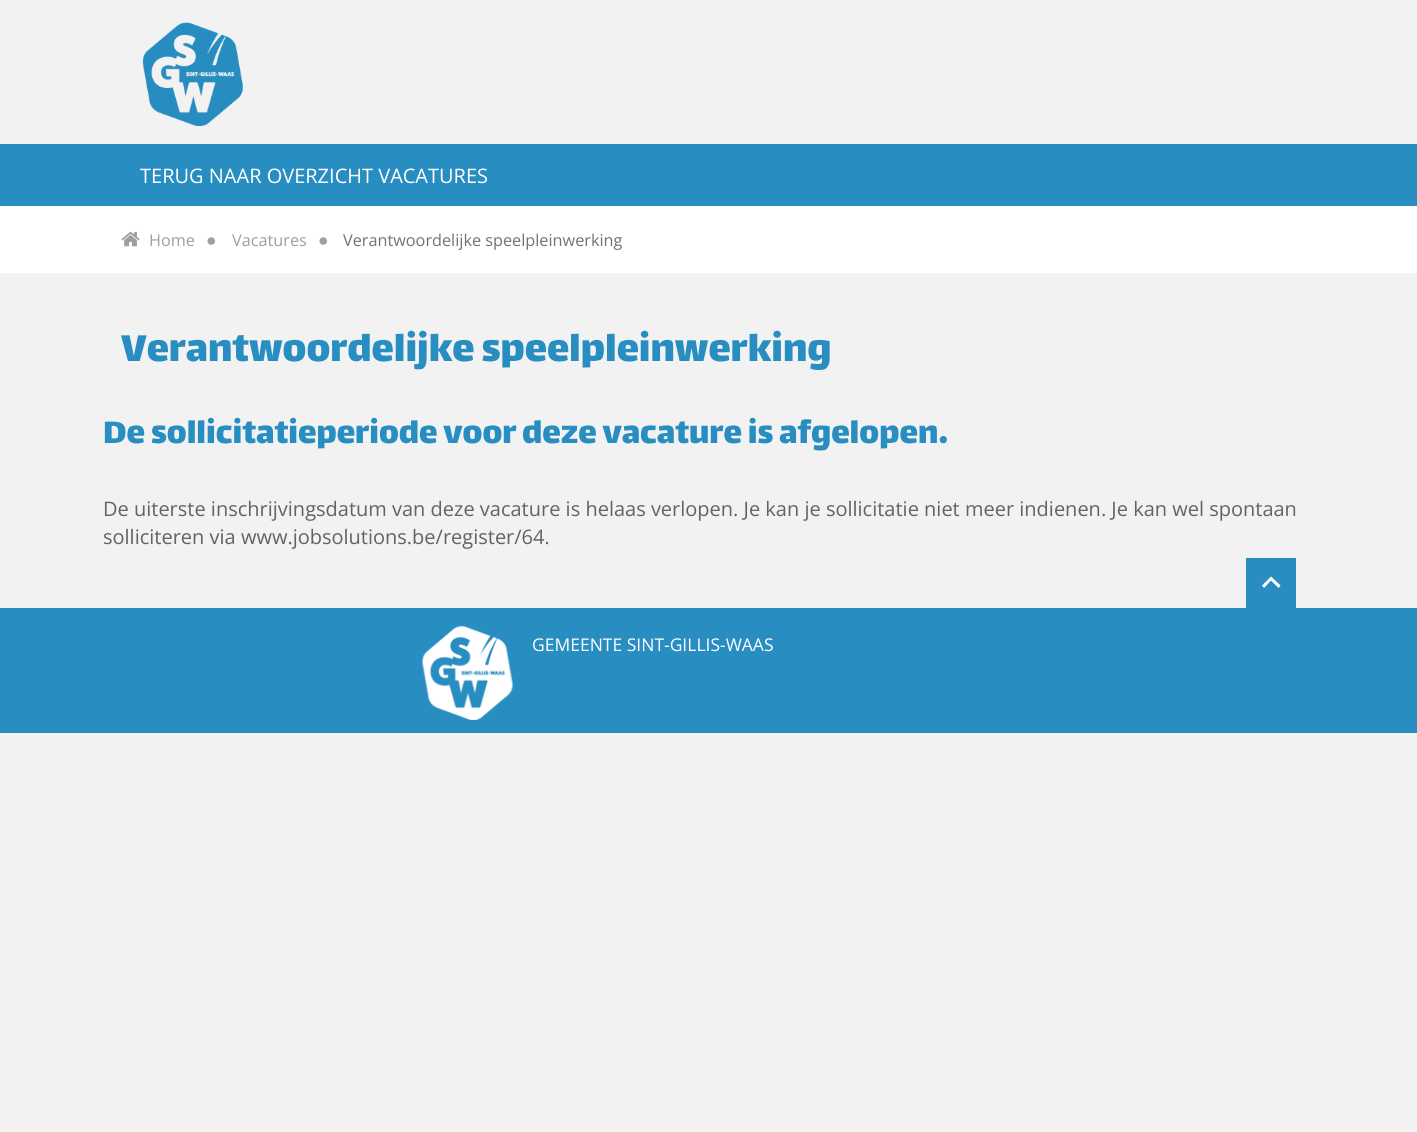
#include <cairo.h>
#include <math.h>
#include <stddef.h>


static void rgb(cairo_t *cr, int r, int g, int b)
{
	cairo_set_source_rgb(cr, r / 255.0, g / 255.0, b / 255.0);
}

static void face(cairo_t *cr, const char *family, double size, int italic, int bold)
{
	cairo_select_font_face(cr, family, italic ? CAIRO_FONT_SLANT_ITALIC : CAIRO_FONT_SLANT_NORMAL,
		bold ? CAIRO_FONT_WEIGHT_BOLD : CAIRO_FONT_WEIGHT_NORMAL);
	cairo_set_font_size(cr, size);
}

static void label(cairo_t *cr, double x, double y, const char *s)
{
	cairo_move_to(cr, x, y);
	cairo_show_text(cr, s);
}

static void rect(cairo_t *cr, double x, double y, double w, double h)
{
	cairo_rectangle(cr, x, y, w, h);
	cairo_fill(cr);
}

static void image(cairo_t *cr, const char *path, double x, double y, double w, double h)
{
	cairo_surface_t *image = cairo_image_surface_create_from_png(path);
	cairo_save(cr);
	cairo_set_source_surface(cr, image, x, y);
	cairo_rectangle(cr, x, y, w, h);
	cairo_fill(cr);
	cairo_restore(cr);
	cairo_surface_destroy(image);
}

static void draw(cairo_t *cr) {
	rgb(cr, 242, 242, 242);
	cairo_paint(cr);
	image(cr, "image0.png", 142, 22, 101, 104);
	rgb(cr, 40, 141, 193);
	rect(cr, 0, 144, 1417, 62);
	face(cr, "Open Sans", 20, 0, 0);
	rgb(cr, 255, 255, 255);
	label(cr, 140, 183, "TERUG NAAR OVERZICHT VACATURES");
	rect(cr, 0, 206, 1417, 67);
	image(cr, "image1.png", 121, 231, 19, 16);
	face(cr, "Open Sans", 16.25, 0, 0);
	rgb(cr, 159, 159, 159);
	label(cr, 149, 246, "Home");
	face(cr, "Liberation Serif", 17.5, 0, 0);
	label(cr, 206, 246, "●");
	face(cr, "Open Sans", 16.25, 0, 0);
	label(cr, 232, 246, "Vacatures");
	face(cr, "Liberation Serif", 17.5, 0, 0);
	label(cr, 318, 246, "●");
	face(cr, "Open Sans", 16.25, 0, 0);
	rgb(cr, 114, 114, 114);
	label(cr, 343, 246, "Verantwoordelijke speelpleinwerking");
	face(cr, "Lalezar", 45, 0, 0);
	rgb(cr, 40, 141, 193);
	label(cr, 121, 361, "Verantwoordelijke speelpleinwerking");
	face(cr, "Lalezar", 37.5, 0, 0);
	label(cr, 103, 443, "De sollicitatieperiode voor deze vacature is afgelopen.");
	face(cr, "Open Sans", 20, 0, 0);
	rgb(cr, 100, 99, 99);
	label(cr, 103, 516, "De uiterste inschrijvingsdatum van deze vacature is helaas verlopen. Je kan je sollicitatie niet meer indienen. Je kan wel spontaan");
	label(cr, 103, 544, "solliciteren via www.jobsolutions.be/register/64.");
	rgb(cr, 40, 141, 193);
	rect(cr, 0, 608, 1417, 125);
	rect(cr, 1246, 558, 50, 50);
	rgb(cr, 255, 255, 255);
	cairo_new_path(cr);
	cairo_move_to(cr, 1264, 588);
	cairo_line_to(cr, 1262, 585.5);
	cairo_line_to(cr, 1271, 576.5);
	cairo_line_to(cr, 1280.5, 585.5);
	cairo_line_to(cr, 1278.5, 588);
	cairo_line_to(cr, 1271, 580.5);
	cairo_close_path(cr);
	cairo_fill(cr);
	image(cr, "image2.png", 422, 626, 91, 94);
	face(cr, "Open Sans", 17.5, 0, 0);
	label(cr, 532, 651, "GEMEENTE SINT-GILLIS-WAAS");
}

int main(void) {
	cairo_surface_t *surface = cairo_image_surface_create(CAIRO_FORMAT_RGB24, 1417, 1132);
	cairo_t *cr = cairo_create(surface);
	cairo_font_options_t *options = cairo_font_options_create();
	cairo_font_options_set_hint_metrics(options, CAIRO_HINT_METRICS_OFF);
	cairo_font_options_set_hint_style(options, CAIRO_HINT_STYLE_NONE);
	cairo_set_font_options(cr, options);
	cairo_set_miter_limit(cr, 4);
	draw(cr);
	cairo_surface_write_to_png(surface, "render.png");
	cairo_font_options_destroy(options);
	cairo_destroy(cr);
	cairo_surface_destroy(surface);
	return 0;
}
